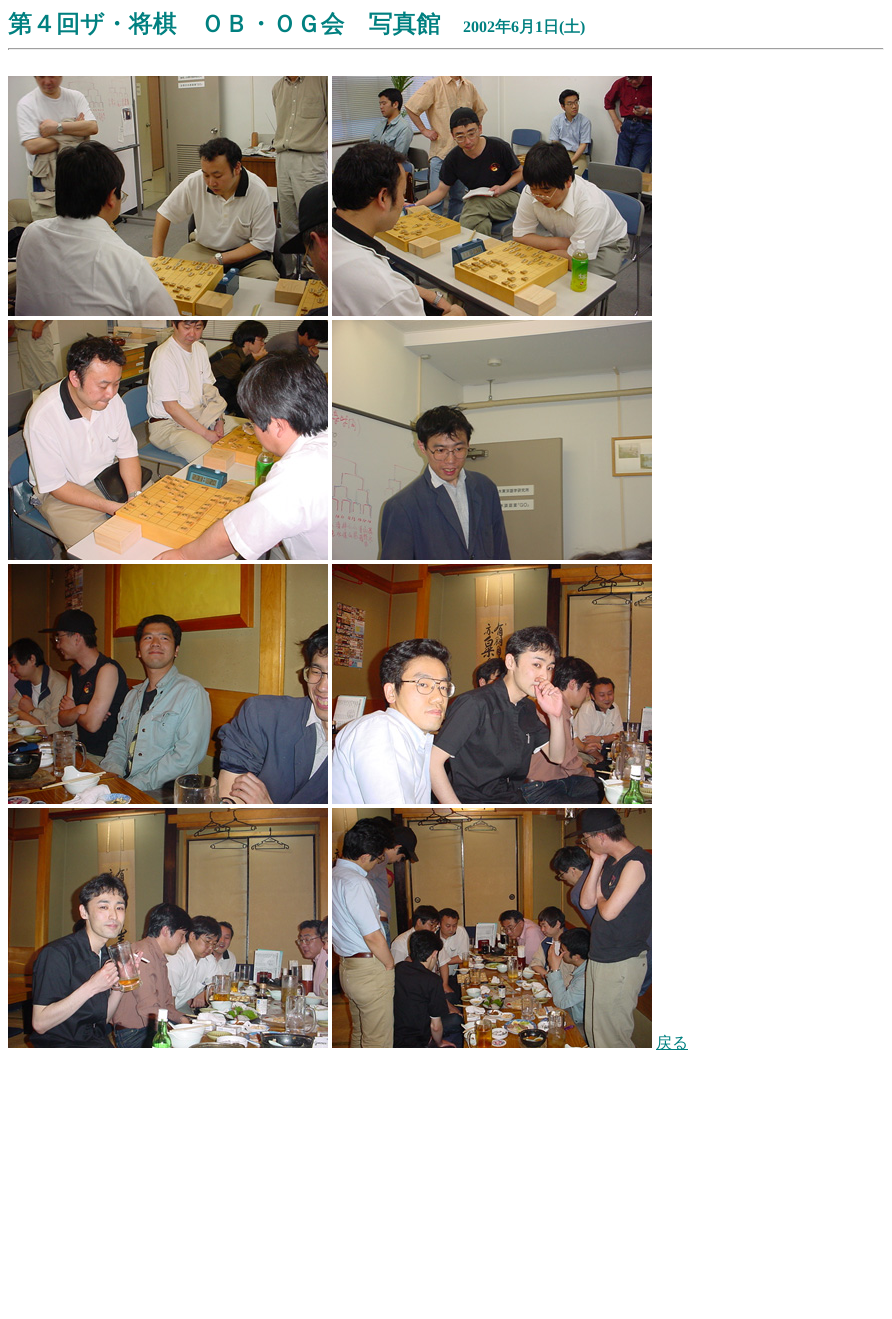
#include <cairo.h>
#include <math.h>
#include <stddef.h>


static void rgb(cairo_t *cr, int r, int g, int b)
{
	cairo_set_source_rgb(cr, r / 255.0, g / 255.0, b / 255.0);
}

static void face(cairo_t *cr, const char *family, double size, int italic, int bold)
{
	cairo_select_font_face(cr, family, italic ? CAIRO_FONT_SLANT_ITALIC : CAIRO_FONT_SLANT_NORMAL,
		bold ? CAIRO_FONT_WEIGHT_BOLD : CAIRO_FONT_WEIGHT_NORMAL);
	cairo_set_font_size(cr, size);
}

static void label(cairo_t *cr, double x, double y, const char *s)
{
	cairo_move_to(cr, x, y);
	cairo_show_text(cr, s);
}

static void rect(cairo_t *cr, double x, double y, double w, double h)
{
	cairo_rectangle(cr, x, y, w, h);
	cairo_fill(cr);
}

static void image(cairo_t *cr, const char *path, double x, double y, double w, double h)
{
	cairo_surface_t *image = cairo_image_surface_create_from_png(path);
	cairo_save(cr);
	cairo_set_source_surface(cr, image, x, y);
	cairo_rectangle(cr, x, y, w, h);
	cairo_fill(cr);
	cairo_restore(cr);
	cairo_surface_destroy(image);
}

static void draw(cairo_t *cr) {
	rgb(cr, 255, 255, 255);
	cairo_paint(cr);
	face(cr, "WenQuanYi Zen Hei", 24, 0, 1);
	rgb(cr, 0, 128, 128);
	label(cr, 8, 32, "第４回ザ・将棋　ＯＢ・ＯＧ会　写真館");
	face(cr, "Liberation Serif", 16, 0, 1);
	label(cr, 463, 32, "2002");
	face(cr, "WenQuanYi Zen Hei", 16, 0, 1);
	label(cr, 495, 32, "年");
	face(cr, "Liberation Serif", 16, 0, 1);
	label(cr, 511, 32, "6");
	face(cr, "WenQuanYi Zen Hei", 16, 0, 1);
	label(cr, 519, 32, "月");
	face(cr, "Liberation Serif", 16, 0, 1);
	label(cr, 535, 32, "1");
	face(cr, "WenQuanYi Zen Hei", 16, 0, 1);
	label(cr, 543, 32, "日");
	face(cr, "Liberation Serif", 16, 0, 1);
	label(cr, 559, 32, "(");
	face(cr, "WenQuanYi Zen Hei", 16, 0, 1);
	label(cr, 564, 32, "土");
	face(cr, "Liberation Serif", 16, 0, 1);
	label(cr, 580, 32, ")");
	rgb(cr, 159, 159, 159);
	rect(cr, 8, 48, 876, 1);
	rgb(cr, 238, 238, 238);
	rect(cr, 883, 48, 1, 2);
	rect(cr, 8, 49, 876, 1);
	rgb(cr, 159, 159, 159);
	rect(cr, 8, 48, 1, 2);
	image(cr, "image0.png", 8, 76, 320, 240);
	image(cr, "image1.png", 332, 76, 320, 240);
	image(cr, "image2.png", 8, 320, 320, 240);
	image(cr, "image3.png", 332, 320, 320, 240);
	image(cr, "image4.png", 8, 564, 320, 240);
	image(cr, "image5.png", 332, 564, 320, 240);
	image(cr, "image6.png", 8, 808, 320, 240);
	image(cr, "image7.png", 332, 808, 320, 240);
	rgb(cr, 0, 128, 128);
	rect(cr, 656, 1049, 32, 1);
	face(cr, "WenQuanYi Zen Hei Medium", 16, 0, 0);
	label(cr, 656, 1048, "戻る");
}

int main(void) {
	cairo_surface_t *surface = cairo_image_surface_create(CAIRO_FORMAT_RGB24, 892, 1319);
	cairo_t *cr = cairo_create(surface);
	cairo_font_options_t *options = cairo_font_options_create();
	cairo_font_options_set_hint_metrics(options, CAIRO_HINT_METRICS_OFF);
	cairo_font_options_set_hint_style(options, CAIRO_HINT_STYLE_NONE);
	cairo_set_font_options(cr, options);
	cairo_set_miter_limit(cr, 4);
	draw(cr);
	cairo_surface_write_to_png(surface, "render.png");
	cairo_font_options_destroy(options);
	cairo_destroy(cr);
	cairo_surface_destroy(surface);
	return 0;
}
